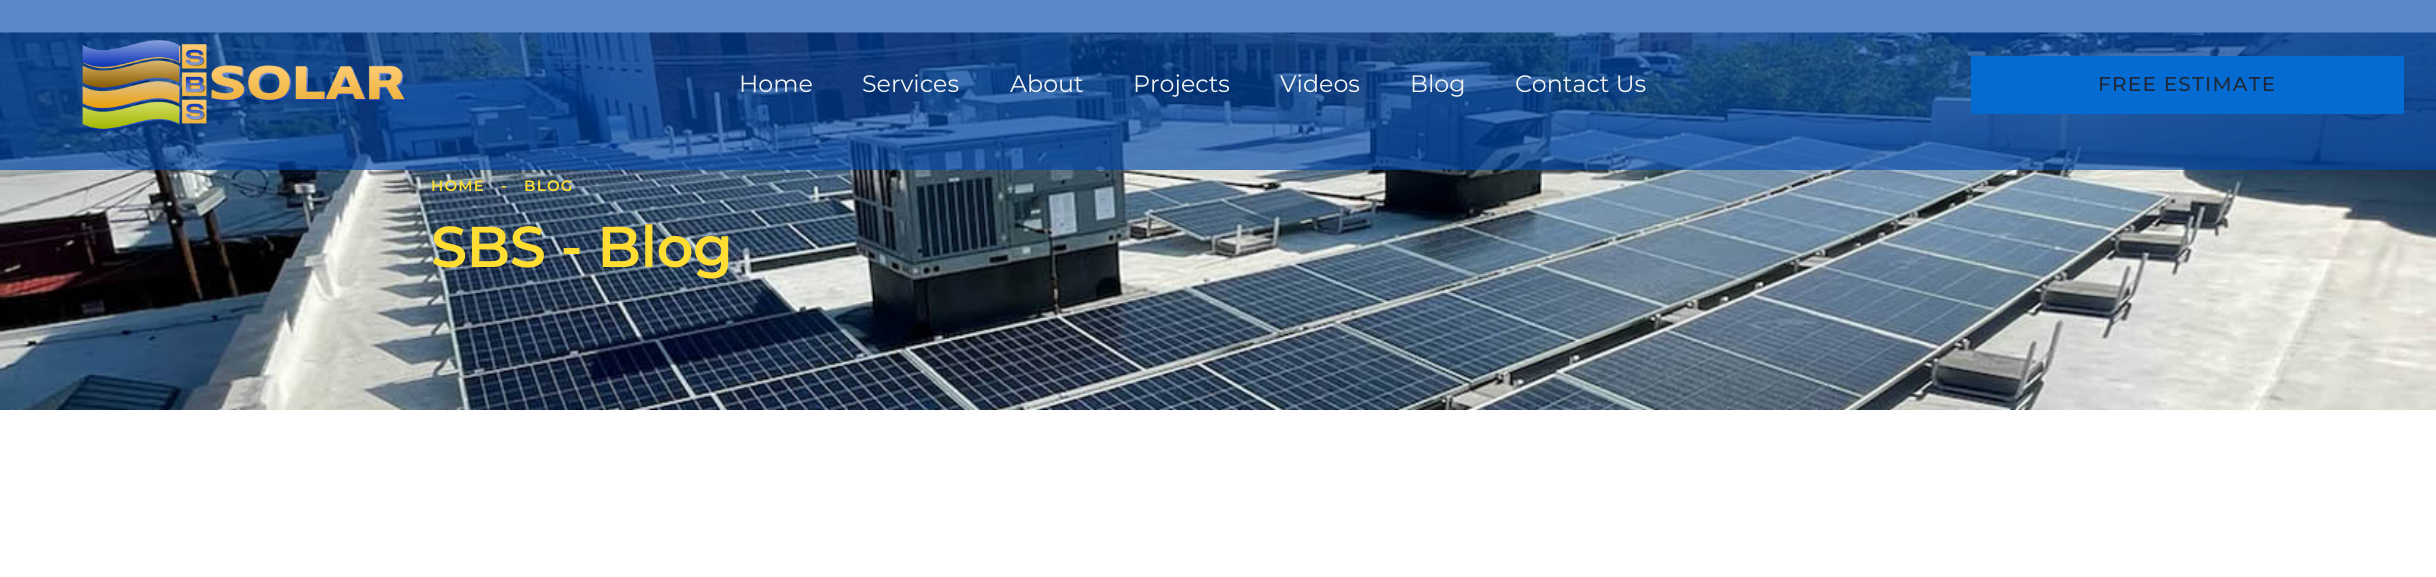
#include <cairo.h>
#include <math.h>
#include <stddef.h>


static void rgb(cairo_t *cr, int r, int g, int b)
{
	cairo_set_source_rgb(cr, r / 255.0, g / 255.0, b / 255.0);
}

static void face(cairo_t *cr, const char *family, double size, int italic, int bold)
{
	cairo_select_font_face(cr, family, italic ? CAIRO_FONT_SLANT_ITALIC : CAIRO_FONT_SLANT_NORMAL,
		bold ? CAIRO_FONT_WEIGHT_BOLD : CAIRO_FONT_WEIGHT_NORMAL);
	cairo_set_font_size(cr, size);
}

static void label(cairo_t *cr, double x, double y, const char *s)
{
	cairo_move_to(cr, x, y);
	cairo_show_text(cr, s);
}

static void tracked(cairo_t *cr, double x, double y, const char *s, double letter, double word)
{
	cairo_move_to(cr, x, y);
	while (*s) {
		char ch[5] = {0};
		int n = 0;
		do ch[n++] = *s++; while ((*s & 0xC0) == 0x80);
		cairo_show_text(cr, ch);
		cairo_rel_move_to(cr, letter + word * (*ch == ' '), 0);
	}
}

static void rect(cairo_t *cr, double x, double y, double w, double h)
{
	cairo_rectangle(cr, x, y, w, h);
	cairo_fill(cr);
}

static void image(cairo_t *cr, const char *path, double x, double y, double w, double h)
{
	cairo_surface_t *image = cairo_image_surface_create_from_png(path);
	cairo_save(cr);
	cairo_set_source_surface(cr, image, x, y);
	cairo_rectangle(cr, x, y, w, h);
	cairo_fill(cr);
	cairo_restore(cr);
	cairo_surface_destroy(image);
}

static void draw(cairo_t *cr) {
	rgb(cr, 255, 255, 255);
	cairo_paint(cr);
	image(cr, "image1.png", 0, 32, 2436, 378);
	cairo_set_source_rgba(cr, 0, 0.278, 0.671, 0.65);
	rect(cr, 0, 0, 2436, 170);
	image(cr, "image0.png", 82, 40, 324, 90);
	face(cr, "Montserrat", 23.75, 0, 0);
	rgb(cr, 242, 243, 243);
	label(cr, 739, 92, "Home");
	label(cr, 862, 92, "Services");
	label(cr, 1010, 92, "About");
	label(cr, 1133, 92, "Projects");
	label(cr, 1280, 92, "Videos");
	label(cr, 1410, 92, "Blog");
	label(cr, 1515, 92, "Contact Us");
	rgb(cr, 4, 107, 210);
	rect(cr, 1971, 56, 433, 58);
	face(cr, "Montserrat Medium", 20, 0, 0);
	rgb(cr, 30, 41, 59);
	tracked(cr, 2098, 91, "FREE ESTIMATE", 1.25, 0);
	face(cr, "Montserrat SemiBold", 15, 0, 0);
	rgb(cr, 255, 221, 51);
	tracked(cr, 431, 191, "HOME", 1.25, 0);
	tracked(cr, 501, 191, "-", 1.25, 0);
	tracked(cr, 524, 191, "BLOG", 1.25, 0);
	face(cr, "Montserrat SemiBold", 57.5, 0, 0);
	tracked(cr, 431, 267, "SBS - Blog", -0.6, 0);
}

int main(void) {
	cairo_surface_t *surface = cairo_image_surface_create(CAIRO_FORMAT_RGB24, 2436, 577);
	cairo_t *cr = cairo_create(surface);
	cairo_font_options_t *options = cairo_font_options_create();
	cairo_font_options_set_hint_metrics(options, CAIRO_HINT_METRICS_OFF);
	cairo_font_options_set_hint_style(options, CAIRO_HINT_STYLE_NONE);
	cairo_set_font_options(cr, options);
	cairo_set_miter_limit(cr, 4);
	draw(cr);
	cairo_surface_write_to_png(surface, "render.png");
	cairo_font_options_destroy(options);
	cairo_destroy(cr);
	cairo_surface_destroy(surface);
	return 0;
}
